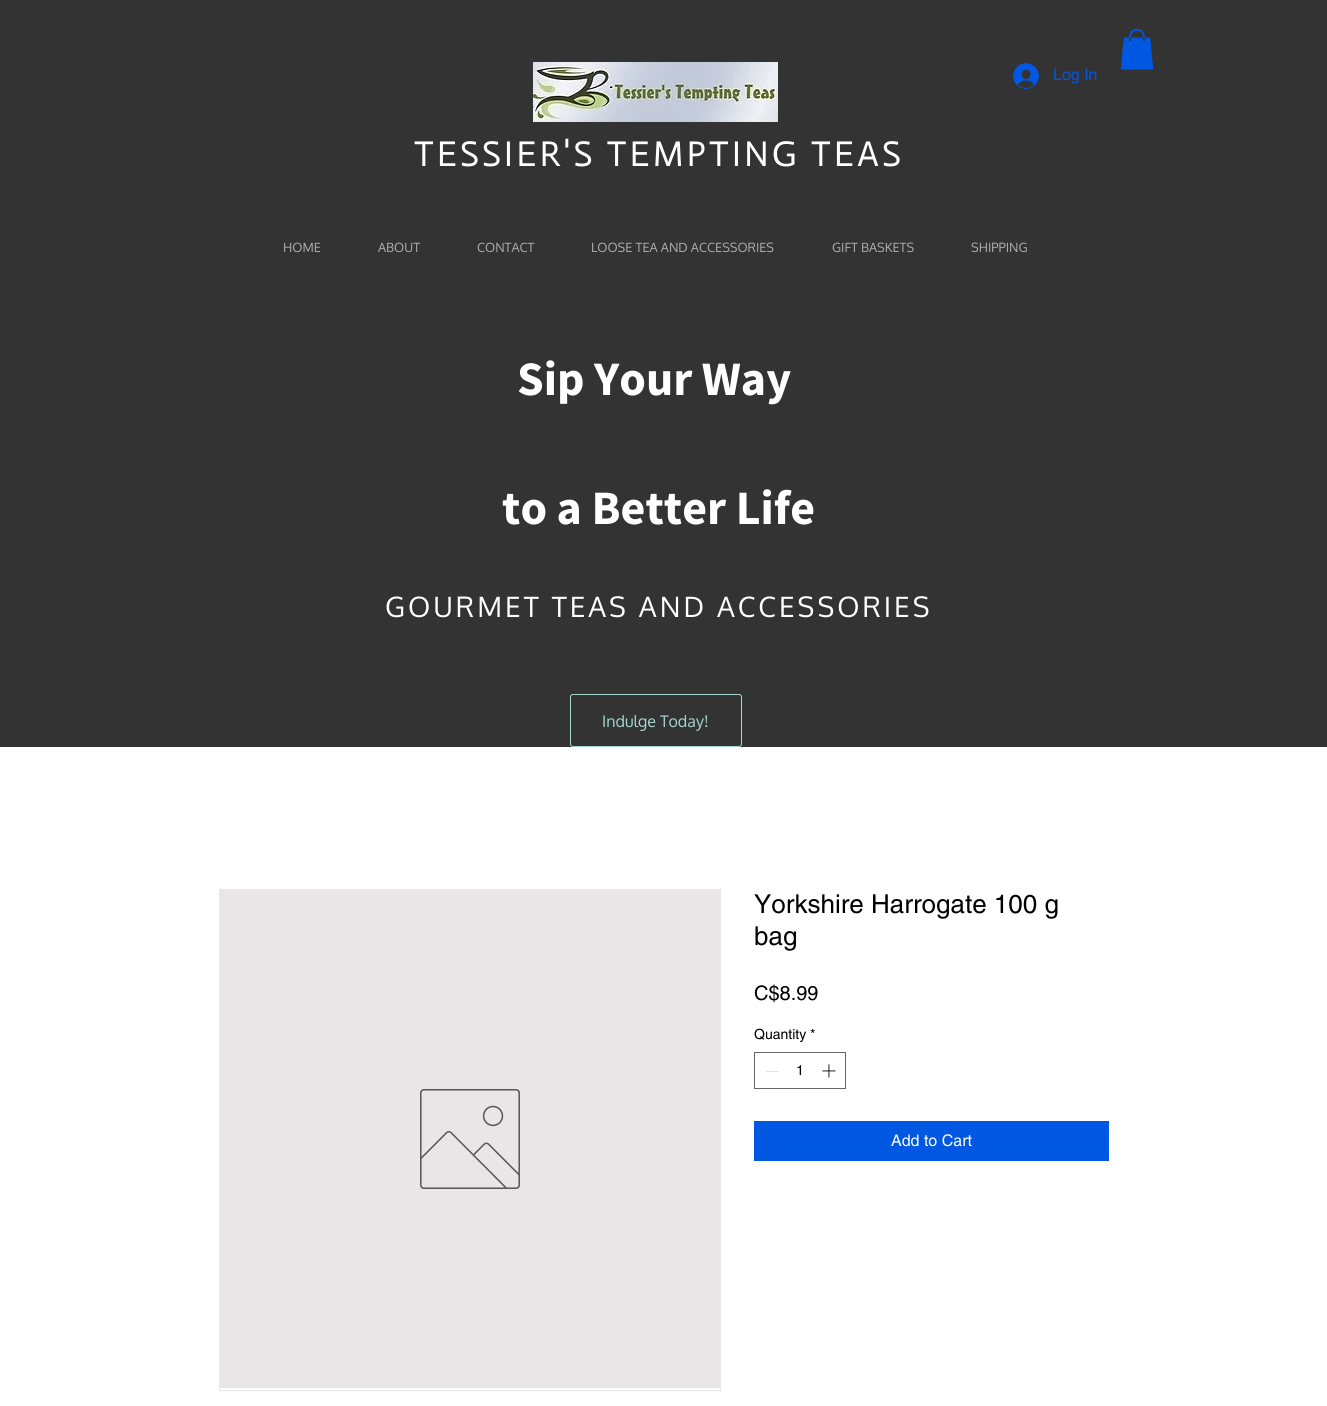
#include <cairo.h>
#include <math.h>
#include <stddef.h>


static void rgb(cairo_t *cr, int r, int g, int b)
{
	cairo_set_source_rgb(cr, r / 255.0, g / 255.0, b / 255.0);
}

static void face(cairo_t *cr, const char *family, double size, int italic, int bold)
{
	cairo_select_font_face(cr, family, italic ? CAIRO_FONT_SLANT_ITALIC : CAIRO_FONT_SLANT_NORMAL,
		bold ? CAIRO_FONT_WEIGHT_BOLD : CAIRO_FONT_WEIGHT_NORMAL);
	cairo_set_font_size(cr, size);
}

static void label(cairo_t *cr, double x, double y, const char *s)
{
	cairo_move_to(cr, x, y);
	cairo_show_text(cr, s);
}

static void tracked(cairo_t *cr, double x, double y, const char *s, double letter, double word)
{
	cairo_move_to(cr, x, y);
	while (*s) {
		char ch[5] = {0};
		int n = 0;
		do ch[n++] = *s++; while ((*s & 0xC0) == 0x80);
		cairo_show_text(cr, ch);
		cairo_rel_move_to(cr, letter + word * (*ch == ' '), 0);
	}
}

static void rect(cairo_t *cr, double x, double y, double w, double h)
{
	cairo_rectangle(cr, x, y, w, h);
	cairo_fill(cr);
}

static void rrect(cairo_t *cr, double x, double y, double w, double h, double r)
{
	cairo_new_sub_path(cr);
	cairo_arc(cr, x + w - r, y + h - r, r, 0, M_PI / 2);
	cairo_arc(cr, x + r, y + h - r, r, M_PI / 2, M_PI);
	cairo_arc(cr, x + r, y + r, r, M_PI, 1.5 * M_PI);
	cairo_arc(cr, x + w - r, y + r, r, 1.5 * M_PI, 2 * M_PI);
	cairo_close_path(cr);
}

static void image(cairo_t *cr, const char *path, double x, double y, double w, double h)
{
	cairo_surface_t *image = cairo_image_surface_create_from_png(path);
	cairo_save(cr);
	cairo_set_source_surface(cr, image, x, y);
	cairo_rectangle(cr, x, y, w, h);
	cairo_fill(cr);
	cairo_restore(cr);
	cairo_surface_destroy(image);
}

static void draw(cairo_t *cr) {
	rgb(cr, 255, 255, 255);
	cairo_paint(cr);
	rgb(cr, 51, 51, 51);
	rect(cr, 0, 0, 1327, 747);
	image(cr, "image0.png", 1120, 29, 34, 41);
	image(cr, "image1.png", 1013, 63, 26, 26);
	face(cr, "helvetica", 16, 0, 0);
	rgb(cr, 0, 87, 225);
	label(cr, 1053, 80, "Log In");
	image(cr, "image2.png", 533, 62, 245, 60);
	face(cr, "Actor", 36, 0, 0);
	rgb(cr, 255, 255, 255);
	tracked(cr, 414, 166, "TESSIER'S TEMPTING TEAS", 3, 0);
	face(cr, "Source Sans Pro", 48, 0, 1);
	label(cr, 517, 395, "Sip Your Way");
	label(cr, 502, 524, "to a Better Life");
	face(cr, "Oxygen", 28, 0, 0);
	tracked(cr, 385, 617, "GOURMET TEAS AND ACCESSORIES", 3, 0);
	rrect(cr, 570.5, 694.5, 171, 52, 2.5);
	rgb(cr, 167, 214, 208);
	cairo_set_line_width(cr, 1);
	cairo_stroke(cr);
	face(cr, "Oxygen", 16, 0, 0);
	label(cr, 602, 727, "Indulge Today!");
	face(cr, "Oxygen", 12.75, 0, 0);
	rgb(cr, 173, 173, 173);
	label(cr, 283, 252, "HOME");
	label(cr, 378, 252, "ABOUT");
	label(cr, 477, 252, "CONTACT");
	label(cr, 591, 252, "LOOSE TEA AND ACCESSORIES");
	label(cr, 832, 252, "GIFT BASKETS");
	label(cr, 971, 252, "SHIPPING");
	cairo_rectangle(cr, 219.5, 889.5, 501, 501);
	rgb(cr, 232, 230, 230);
	cairo_stroke(cr);
	rect(cr, 220, 890, 500, 498);
	image(cr, "image3.png", 420, 1089, 100, 100);
	face(cr, "helvetica", 26, 0, 0);
	rgb(cr, 0, 0, 0);
	label(cr, 754, 913, "Yorkshire Harrogate 100 g");
	label(cr, 754, 945, "bag");
	face(cr, "helvetica", 20, 0, 0);
	label(cr, 754, 1000, "C$8.99");
	face(cr, "helvetica", 14, 0, 0);
	label(cr, 754, 1039, "Quantity *");
	cairo_rectangle(cr, 754.5, 1052.5, 91, 36);
	rgb(cr, 102, 102, 102);
	cairo_stroke(cr);
	rgb(cr, 227, 227, 227);
	rect(cr, 766, 1071, 13, 1);
	rgb(cr, 0, 0, 0);
	label(cr, 796, 1075, "1");
	image(cr, "image4.png", 822, 1064, 14, 14);
	rgb(cr, 0, 87, 225);
	rect(cr, 754, 1121, 355, 40);
	face(cr, "helvetica", 16, 0, 0);
	rgb(cr, 255, 255, 255);
	label(cr, 891, 1146, "Add to Cart");
}

int main(void) {
	cairo_surface_t *surface = cairo_image_surface_create(CAIRO_FORMAT_RGB24, 1327, 1406);
	cairo_t *cr = cairo_create(surface);
	cairo_font_options_t *options = cairo_font_options_create();
	cairo_font_options_set_hint_metrics(options, CAIRO_HINT_METRICS_OFF);
	cairo_font_options_set_hint_style(options, CAIRO_HINT_STYLE_NONE);
	cairo_set_font_options(cr, options);
	cairo_set_miter_limit(cr, 4);
	draw(cr);
	cairo_surface_write_to_png(surface, "render.png");
	cairo_font_options_destroy(options);
	cairo_destroy(cr);
	cairo_surface_destroy(surface);
	return 0;
}
